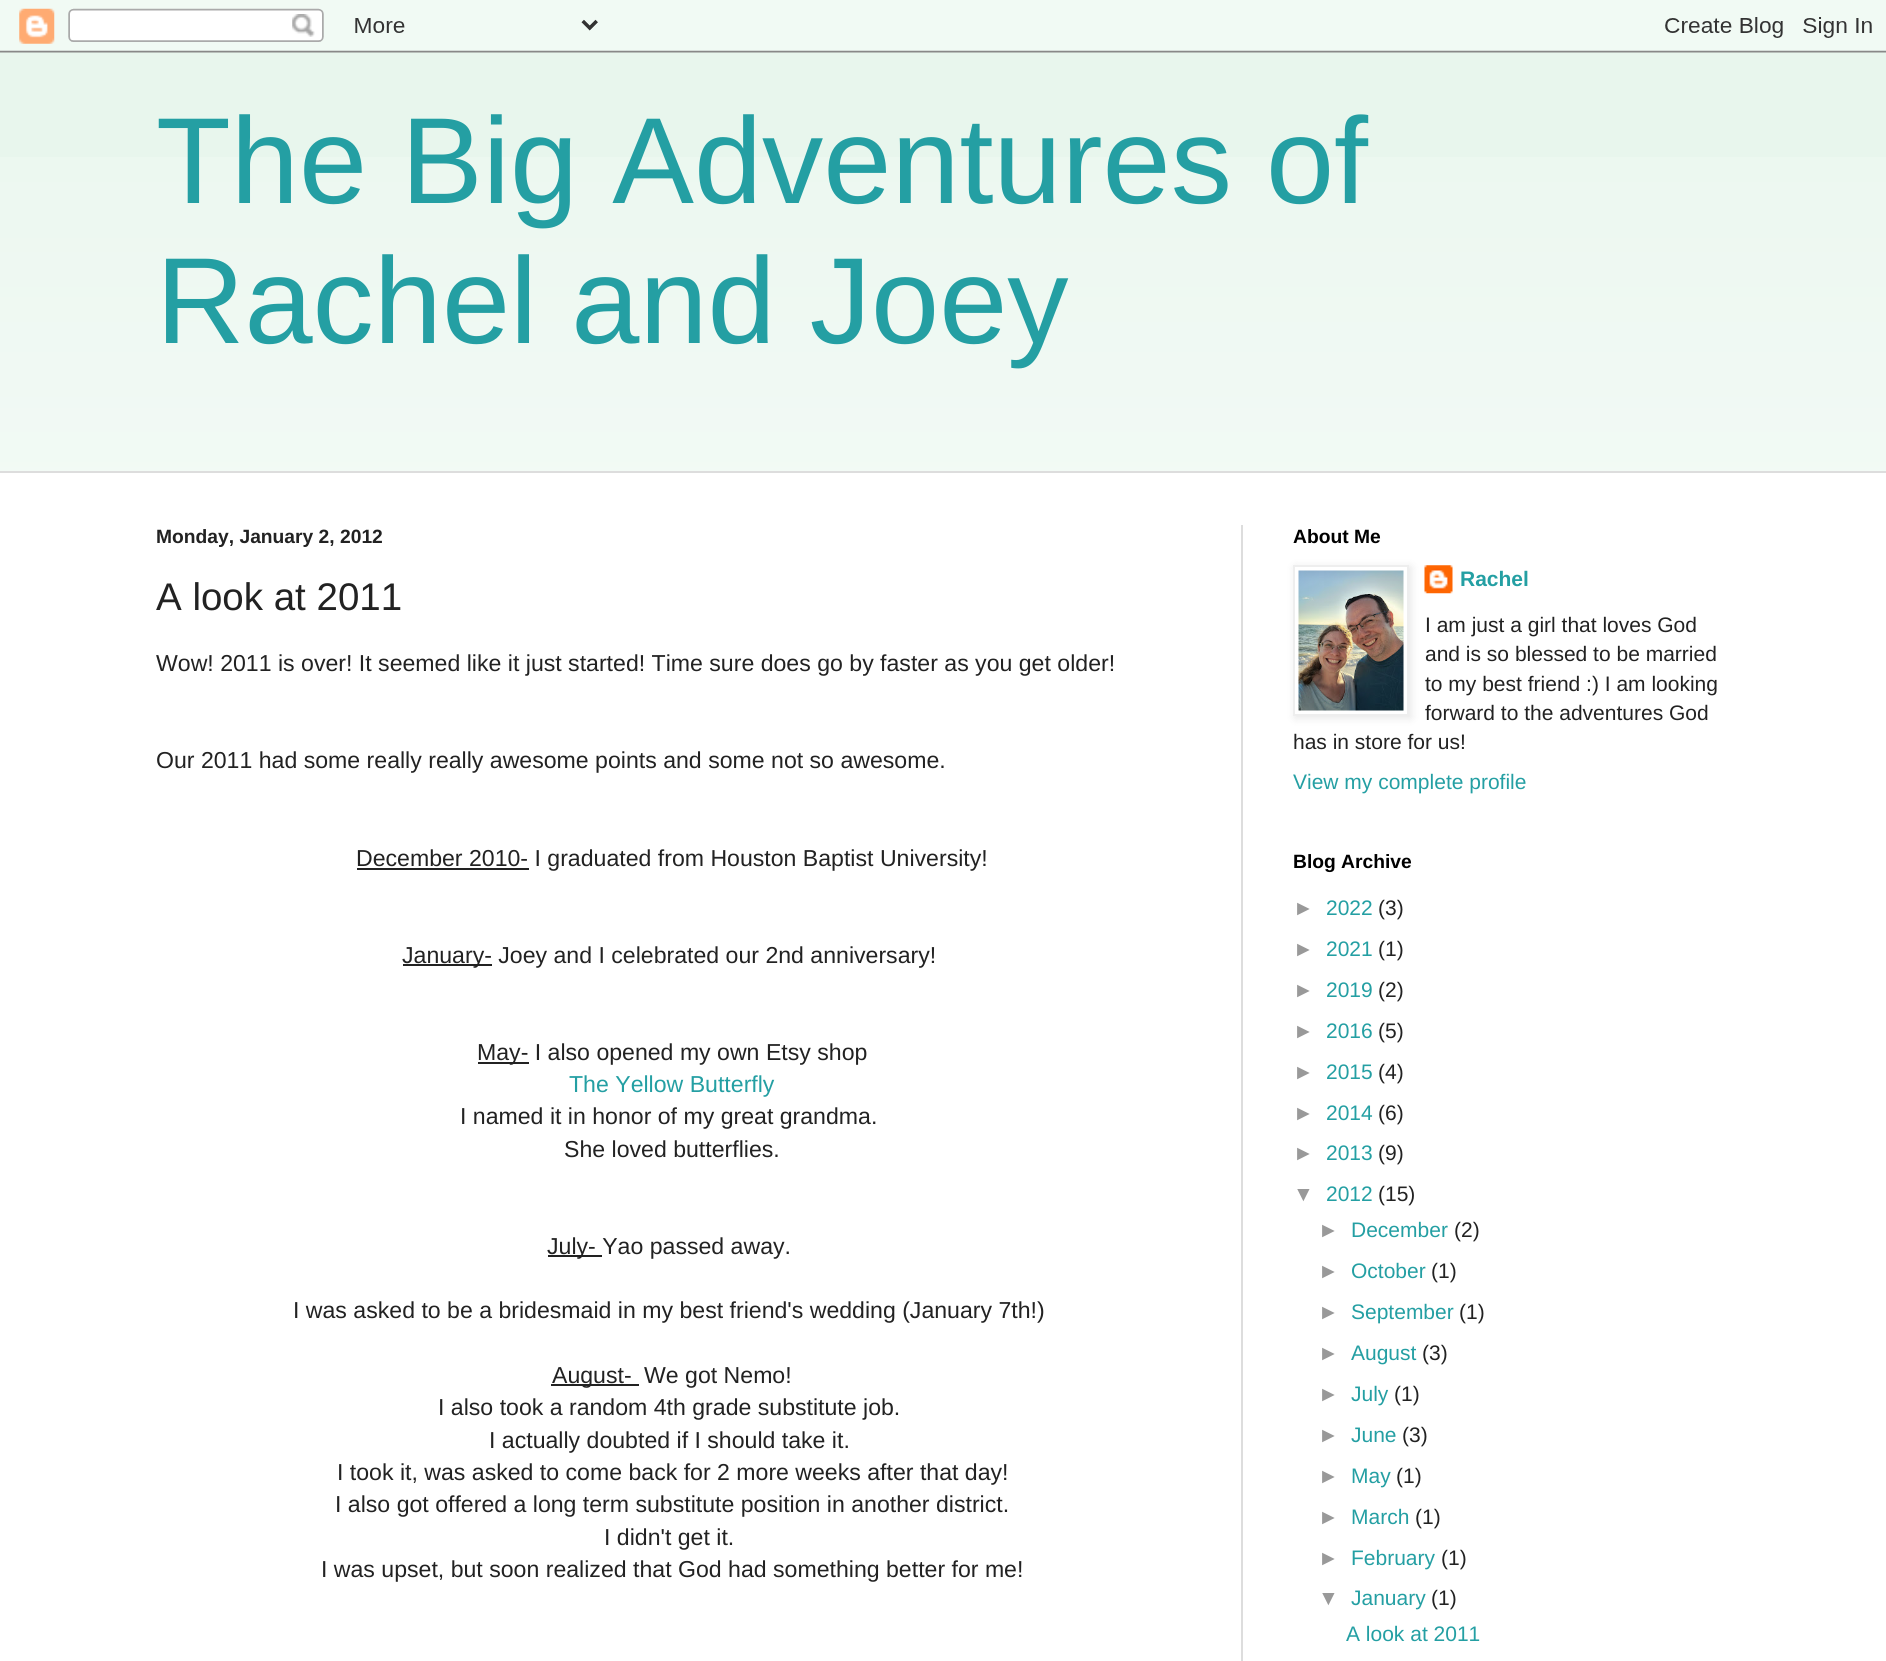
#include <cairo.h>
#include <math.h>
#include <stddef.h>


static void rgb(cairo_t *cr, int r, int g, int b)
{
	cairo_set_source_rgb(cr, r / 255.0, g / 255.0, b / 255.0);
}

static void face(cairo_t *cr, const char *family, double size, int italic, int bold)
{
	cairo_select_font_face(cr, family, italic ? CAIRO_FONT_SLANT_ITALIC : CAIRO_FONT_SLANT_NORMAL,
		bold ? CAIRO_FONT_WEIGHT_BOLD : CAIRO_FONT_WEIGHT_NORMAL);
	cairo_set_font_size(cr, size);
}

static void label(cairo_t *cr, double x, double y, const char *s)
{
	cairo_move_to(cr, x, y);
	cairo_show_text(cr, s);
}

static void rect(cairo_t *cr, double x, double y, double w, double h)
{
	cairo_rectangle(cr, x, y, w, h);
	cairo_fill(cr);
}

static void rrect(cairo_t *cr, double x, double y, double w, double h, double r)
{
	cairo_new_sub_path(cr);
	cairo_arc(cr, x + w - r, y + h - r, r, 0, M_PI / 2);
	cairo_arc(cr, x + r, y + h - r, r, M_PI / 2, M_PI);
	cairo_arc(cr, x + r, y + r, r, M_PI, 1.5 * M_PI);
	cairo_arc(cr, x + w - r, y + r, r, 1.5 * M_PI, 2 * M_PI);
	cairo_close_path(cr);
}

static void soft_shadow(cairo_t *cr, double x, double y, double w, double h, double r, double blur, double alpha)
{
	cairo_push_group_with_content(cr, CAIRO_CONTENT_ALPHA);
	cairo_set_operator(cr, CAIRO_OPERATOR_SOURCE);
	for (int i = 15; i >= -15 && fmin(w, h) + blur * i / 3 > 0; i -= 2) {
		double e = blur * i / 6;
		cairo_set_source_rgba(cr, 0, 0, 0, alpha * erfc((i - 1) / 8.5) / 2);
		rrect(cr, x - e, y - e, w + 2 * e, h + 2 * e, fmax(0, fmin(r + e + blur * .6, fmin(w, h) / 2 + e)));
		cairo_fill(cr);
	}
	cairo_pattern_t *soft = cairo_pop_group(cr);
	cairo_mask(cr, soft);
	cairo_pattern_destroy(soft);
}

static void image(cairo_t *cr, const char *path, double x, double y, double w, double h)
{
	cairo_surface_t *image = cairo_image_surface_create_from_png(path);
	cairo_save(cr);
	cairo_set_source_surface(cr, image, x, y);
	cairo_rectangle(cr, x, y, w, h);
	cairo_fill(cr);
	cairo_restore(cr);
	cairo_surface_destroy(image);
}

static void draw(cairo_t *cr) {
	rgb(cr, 232, 246, 237);
	cairo_paint(cr);
	image(cr, "image0.png", 0, 0, 1886, 53);
	image(cr, "image3.png", 0, 157, 1886, 314);
	face(cr, "Liberation Sans", 122.5, 0, 0);
	rgb(cr, 36, 159, 163);
	label(cr, 156, 203, "The Big Adventures of");
	label(cr, 156, 343, "Rachel and Joey");
	rgb(cr, 255, 255, 255);
	rect(cr, 0, 473, 1886, 1188);
	rgb(cr, 221, 221, 221);
	rect(cr, 0, 471, 1886, 2);
	rect(cr, 1241, 525, 2, 1136);
	face(cr, "Liberation Sans", 19.25, 0, 1);
	rgb(cr, 34, 34, 34);
	label(cr, 156, 543, "Monday, January 2, 2012");
	face(cr, "Liberation Sans", 38.5, 0, 0);
	label(cr, 156, 610, "A look at 2011");
	face(cr, "Liberation Sans", 23.1, 0, 0);
	label(cr, 156, 671, "Wow! 2011 is over! It seemed like it just started! Time sure does go by faster as you get older!");
	label(cr, 156, 768, "Our 2011 had some really really awesome points and some not so awesome.");
	rect(cr, 357, 868, 172, 2);
	label(cr, 356, 866, "December 2010- I graduated from Houston Baptist University!");
	rect(cr, 403, 964, 89, 2);
	label(cr, 402, 963, "January- Joey and I celebrated our 2nd anniversary!");
	rect(cr, 478, 1062, 51, 2);
	label(cr, 477, 1060, "May- I also opened my own Etsy shop");
	rgb(cr, 36, 159, 163);
	label(cr, 569, 1092, "The Yellow Butterfly");
	rgb(cr, 34, 34, 34);
	label(cr, 460, 1124, "I named it in honor of my great grandma.");
	label(cr, 564, 1157, "She loved butterflies.");
	rect(cr, 548, 1255, 54, 2);
	label(cr, 547, 1254, "July- Yao passed away.");
	label(cr, 293, 1318, "I was asked to be a bridesmaid in my best friend's wedding (January 7th!)");
	rect(cr, 551, 1384, 88, 2);
	label(cr, 552, 1383, "August-");
	label(cr, 644, 1383, "We got Nemo!");
	label(cr, 438, 1415, "I also took a random 4th grade substitute job.");
	label(cr, 489, 1448, "I actually doubted if I should take it.");
	label(cr, 337, 1480, "I took it, was asked to come back for 2 more weeks after that day!");
	label(cr, 335, 1512, "I also got offered a long term substitute position in another district.");
	label(cr, 604, 1545, "I didn't get it.");
	label(cr, 321, 1577, "I was upset, but soon realized that God had something better for me!");
	face(cr, "Liberation Sans", 19.25, 0, 1);
	rgb(cr, 0, 0, 0);
	label(cr, 1293, 543, "About Me");
	image(cr, "image2.png", 1424, 565, 29, 29);
	rgb(cr, 0, 0, 0);
	soft_shadow(cr, 1295, 567, 116, 151, 0, 4.5, 0.1);
	rgb(cr, 255, 255, 255);
	cairo_rectangle(cr, 1294, 566, 114, 149);
	cairo_fill_preserve(cr);
	rgb(cr, 238, 238, 238);
	cairo_stroke(cr);
	image(cr, "image1.png", 1298, 570, 106, 141);
	face(cr, "Liberation Sans", 21, 0, 1);
	rgb(cr, 36, 159, 163);
	label(cr, 1460, 586, "Rachel");
	face(cr, "Liberation Sans", 21, 0, 0);
	rgb(cr, 34, 34, 34);
	label(cr, 1425, 632, "I am just a girl that loves God");
	label(cr, 1425, 661, "and is so blessed to be married");
	label(cr, 1425, 691, "to my best friend :) I am looking");
	label(cr, 1425, 720, "forward to the adventures God");
	label(cr, 1293, 749, "has in store for us!");
	rgb(cr, 36, 159, 163);
	label(cr, 1293, 789, "View my complete profile");
	face(cr, "Liberation Sans", 19.25, 0, 1);
	rgb(cr, 0, 0, 0);
	label(cr, 1293, 868, "Blog Archive");
	face(cr, "Liberation Sans", 21, 0, 0);
	rgb(cr, 153, 153, 153);
	label(cr, 1293, 915, "►");
	rgb(cr, 36, 159, 163);
	label(cr, 1326, 915, "2022");
	rgb(cr, 34, 34, 34);
	label(cr, 1378, 915, "(3)");
	rgb(cr, 153, 153, 153);
	label(cr, 1293, 956, "►");
	rgb(cr, 36, 159, 163);
	label(cr, 1326, 956, "2021");
	rgb(cr, 34, 34, 34);
	label(cr, 1378, 956, "(1)");
	rgb(cr, 153, 153, 153);
	label(cr, 1293, 997, "►");
	rgb(cr, 36, 159, 163);
	label(cr, 1326, 997, "2019");
	rgb(cr, 34, 34, 34);
	label(cr, 1378, 997, "(2)");
	rgb(cr, 153, 153, 153);
	label(cr, 1293, 1038, "►");
	rgb(cr, 36, 159, 163);
	label(cr, 1326, 1038, "2016");
	rgb(cr, 34, 34, 34);
	label(cr, 1378, 1038, "(5)");
	rgb(cr, 153, 153, 153);
	label(cr, 1293, 1079, "►");
	rgb(cr, 36, 159, 163);
	label(cr, 1326, 1079, "2015");
	rgb(cr, 34, 34, 34);
	label(cr, 1378, 1079, "(4)");
	rgb(cr, 153, 153, 153);
	label(cr, 1293, 1120, "►");
	rgb(cr, 36, 159, 163);
	label(cr, 1326, 1120, "2014");
	rgb(cr, 34, 34, 34);
	label(cr, 1378, 1120, "(6)");
	rgb(cr, 153, 153, 153);
	label(cr, 1293, 1160, "►");
	rgb(cr, 36, 159, 163);
	label(cr, 1326, 1160, "2013");
	rgb(cr, 34, 34, 34);
	label(cr, 1378, 1160, "(9)");
	rgb(cr, 153, 153, 153);
	label(cr, 1293, 1201, "▼");
	rgb(cr, 36, 159, 163);
	label(cr, 1326, 1201, "2012");
	rgb(cr, 34, 34, 34);
	label(cr, 1378, 1201, "(15)");
	rgb(cr, 153, 153, 153);
	label(cr, 1318, 1237, "►");
	rgb(cr, 36, 159, 163);
	label(cr, 1351, 1237, "December");
	rgb(cr, 34, 34, 34);
	label(cr, 1454, 1237, "(2)");
	rgb(cr, 153, 153, 153);
	label(cr, 1318, 1278, "►");
	rgb(cr, 36, 159, 163);
	label(cr, 1351, 1278, "October");
	rgb(cr, 34, 34, 34);
	label(cr, 1431, 1278, "(1)");
	rgb(cr, 153, 153, 153);
	label(cr, 1318, 1319, "►");
	rgb(cr, 36, 159, 163);
	label(cr, 1351, 1319, "September");
	rgb(cr, 34, 34, 34);
	label(cr, 1459, 1319, "(1)");
	rgb(cr, 153, 153, 153);
	label(cr, 1318, 1360, "►");
	rgb(cr, 36, 159, 163);
	label(cr, 1351, 1360, "August");
	rgb(cr, 34, 34, 34);
	label(cr, 1422, 1360, "(3)");
	rgb(cr, 153, 153, 153);
	label(cr, 1318, 1401, "►");
	rgb(cr, 36, 159, 163);
	label(cr, 1351, 1401, "July");
	rgb(cr, 34, 34, 34);
	label(cr, 1394, 1401, "(1)");
	rgb(cr, 153, 153, 153);
	label(cr, 1318, 1442, "►");
	rgb(cr, 36, 159, 163);
	label(cr, 1351, 1442, "June");
	rgb(cr, 34, 34, 34);
	label(cr, 1402, 1442, "(3)");
	rgb(cr, 153, 153, 153);
	label(cr, 1318, 1483, "►");
	rgb(cr, 36, 159, 163);
	label(cr, 1351, 1483, "May");
	rgb(cr, 34, 34, 34);
	label(cr, 1396, 1483, "(1)");
	rgb(cr, 153, 153, 153);
	label(cr, 1318, 1524, "►");
	rgb(cr, 36, 159, 163);
	label(cr, 1351, 1524, "March");
	rgb(cr, 34, 34, 34);
	label(cr, 1415, 1524, "(1)");
	rgb(cr, 153, 153, 153);
	label(cr, 1318, 1565, "►");
	rgb(cr, 36, 159, 163);
	label(cr, 1351, 1565, "February");
	rgb(cr, 34, 34, 34);
	label(cr, 1441, 1565, "(1)");
	rgb(cr, 153, 153, 153);
	label(cr, 1318, 1605, "▼");
	rgb(cr, 36, 159, 163);
	label(cr, 1351, 1605, "January");
	rgb(cr, 34, 34, 34);
	label(cr, 1431, 1605, "(1)");
	rgb(cr, 36, 159, 163);
	label(cr, 1346, 1641, "A look at 2011");
}

int main(void) {
	cairo_surface_t *surface = cairo_image_surface_create(CAIRO_FORMAT_RGB24, 1886, 1661);
	cairo_t *cr = cairo_create(surface);
	cairo_font_options_t *options = cairo_font_options_create();
	cairo_font_options_set_hint_metrics(options, CAIRO_HINT_METRICS_OFF);
	cairo_font_options_set_hint_style(options, CAIRO_HINT_STYLE_NONE);
	cairo_set_font_options(cr, options);
	cairo_set_miter_limit(cr, 4);
	draw(cr);
	cairo_surface_write_to_png(surface, "render.png");
	cairo_font_options_destroy(options);
	cairo_destroy(cr);
	cairo_surface_destroy(surface);
	return 0;
}
